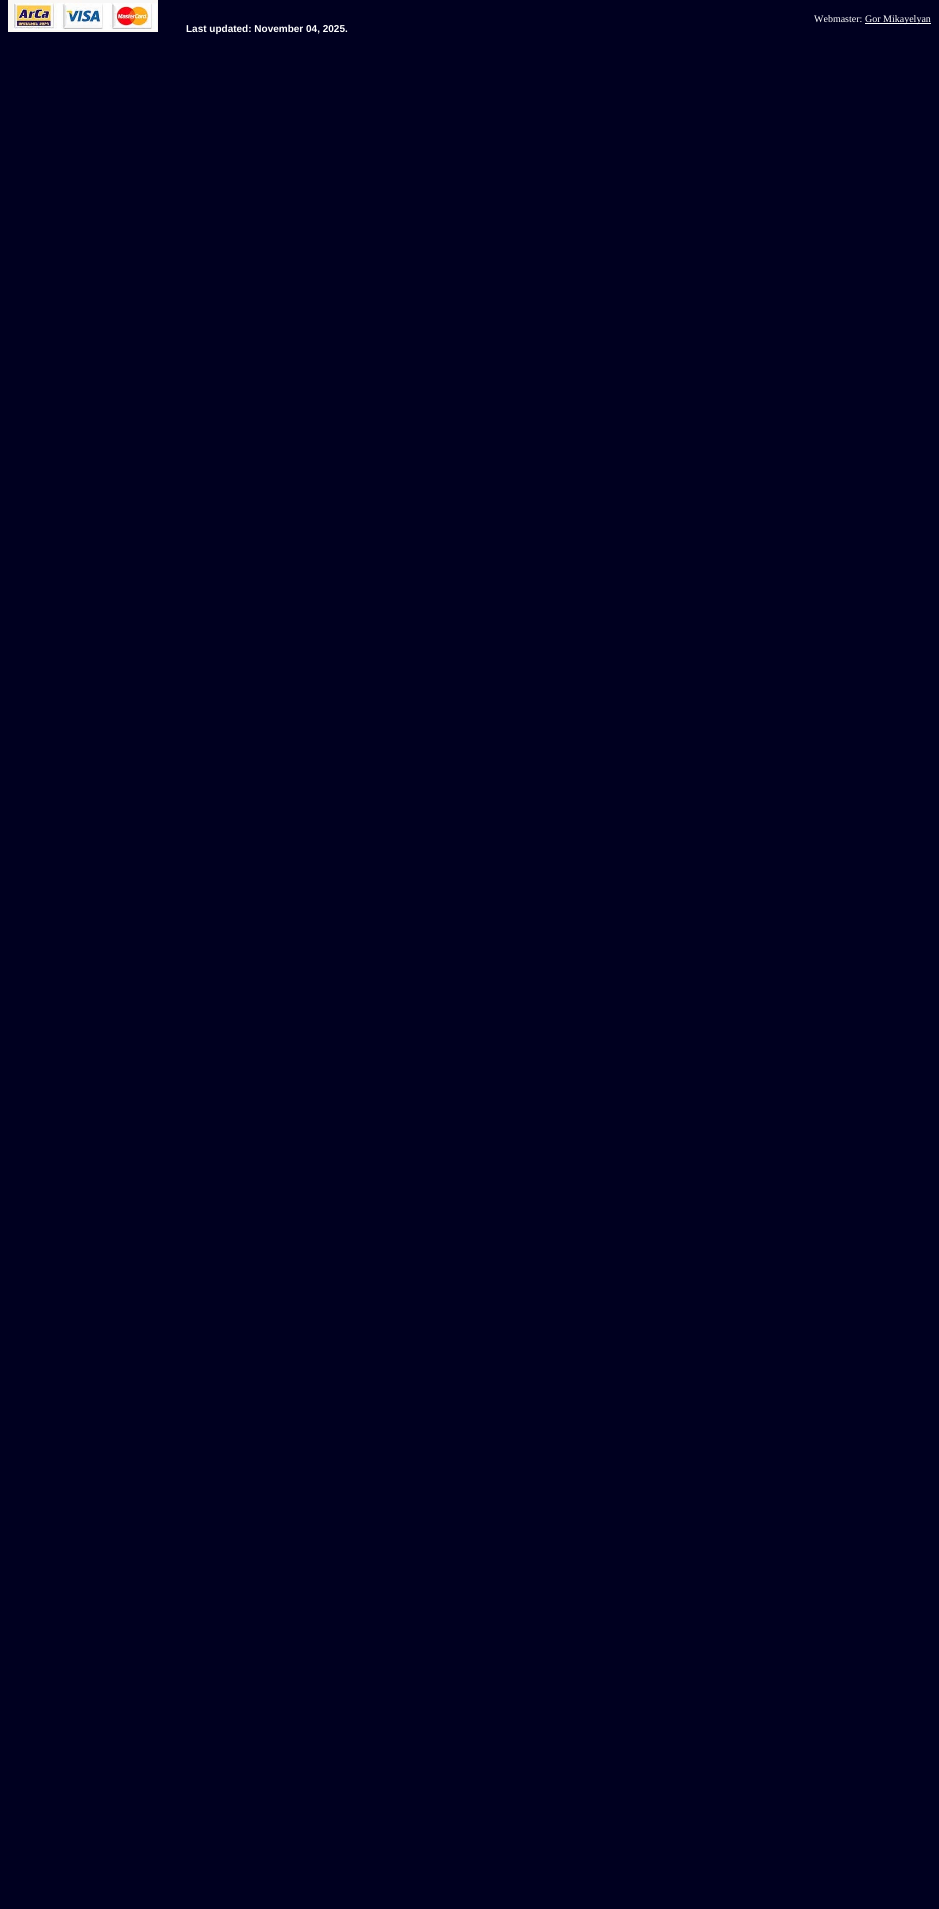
#include <cairo.h>
#include <math.h>
#include <stddef.h>


static void rgb(cairo_t *cr, int r, int g, int b)
{
	cairo_set_source_rgb(cr, r / 255.0, g / 255.0, b / 255.0);
}

static void face(cairo_t *cr, const char *family, double size, int italic, int bold)
{
	cairo_select_font_face(cr, family, italic ? CAIRO_FONT_SLANT_ITALIC : CAIRO_FONT_SLANT_NORMAL,
		bold ? CAIRO_FONT_WEIGHT_BOLD : CAIRO_FONT_WEIGHT_NORMAL);
	cairo_set_font_size(cr, size);
}

static void label(cairo_t *cr, double x, double y, const char *s)
{
	cairo_move_to(cr, x, y);
	cairo_show_text(cr, s);
}

static void rect(cairo_t *cr, double x, double y, double w, double h)
{
	cairo_rectangle(cr, x, y, w, h);
	cairo_fill(cr);
}

static void image(cairo_t *cr, const char *path, double x, double y, double w, double h)
{
	cairo_surface_t *image = cairo_image_surface_create_from_png(path);
	cairo_save(cr);
	cairo_set_source_surface(cr, image, x, y);
	cairo_rectangle(cr, x, y, w, h);
	cairo_fill(cr);
	cairo_restore(cr);
	cairo_surface_destroy(image);
}

static void draw(cairo_t *cr) {
	rgb(cr, 0, 0, 32);
	cairo_paint(cr);
	face(cr, "Liberation Serif", 10, 0, 0);
	rgb(cr, 255, 255, 255);
	label(cr, 814, 22, "Webmaster:");
	rect(cr, 865, 23, 66, 1);
	label(cr, 865, 22, "Gor Mikayelyan");
	image(cr, "image0.png", 8, 0, 150, 32);
	face(cr, "Liberation Sans", 10, 0, 1);
	label(cr, 186, 32, "Last updated: November 04, 2025.");
}

int main(void) {
	cairo_surface_t *surface = cairo_image_surface_create(CAIRO_FORMAT_RGB24, 939, 1909);
	cairo_t *cr = cairo_create(surface);
	cairo_font_options_t *options = cairo_font_options_create();
	cairo_font_options_set_hint_metrics(options, CAIRO_HINT_METRICS_OFF);
	cairo_font_options_set_hint_style(options, CAIRO_HINT_STYLE_NONE);
	cairo_set_font_options(cr, options);
	cairo_set_miter_limit(cr, 4);
	draw(cr);
	cairo_surface_write_to_png(surface, "render.png");
	cairo_font_options_destroy(options);
	cairo_destroy(cr);
	cairo_surface_destroy(surface);
	return 0;
}
